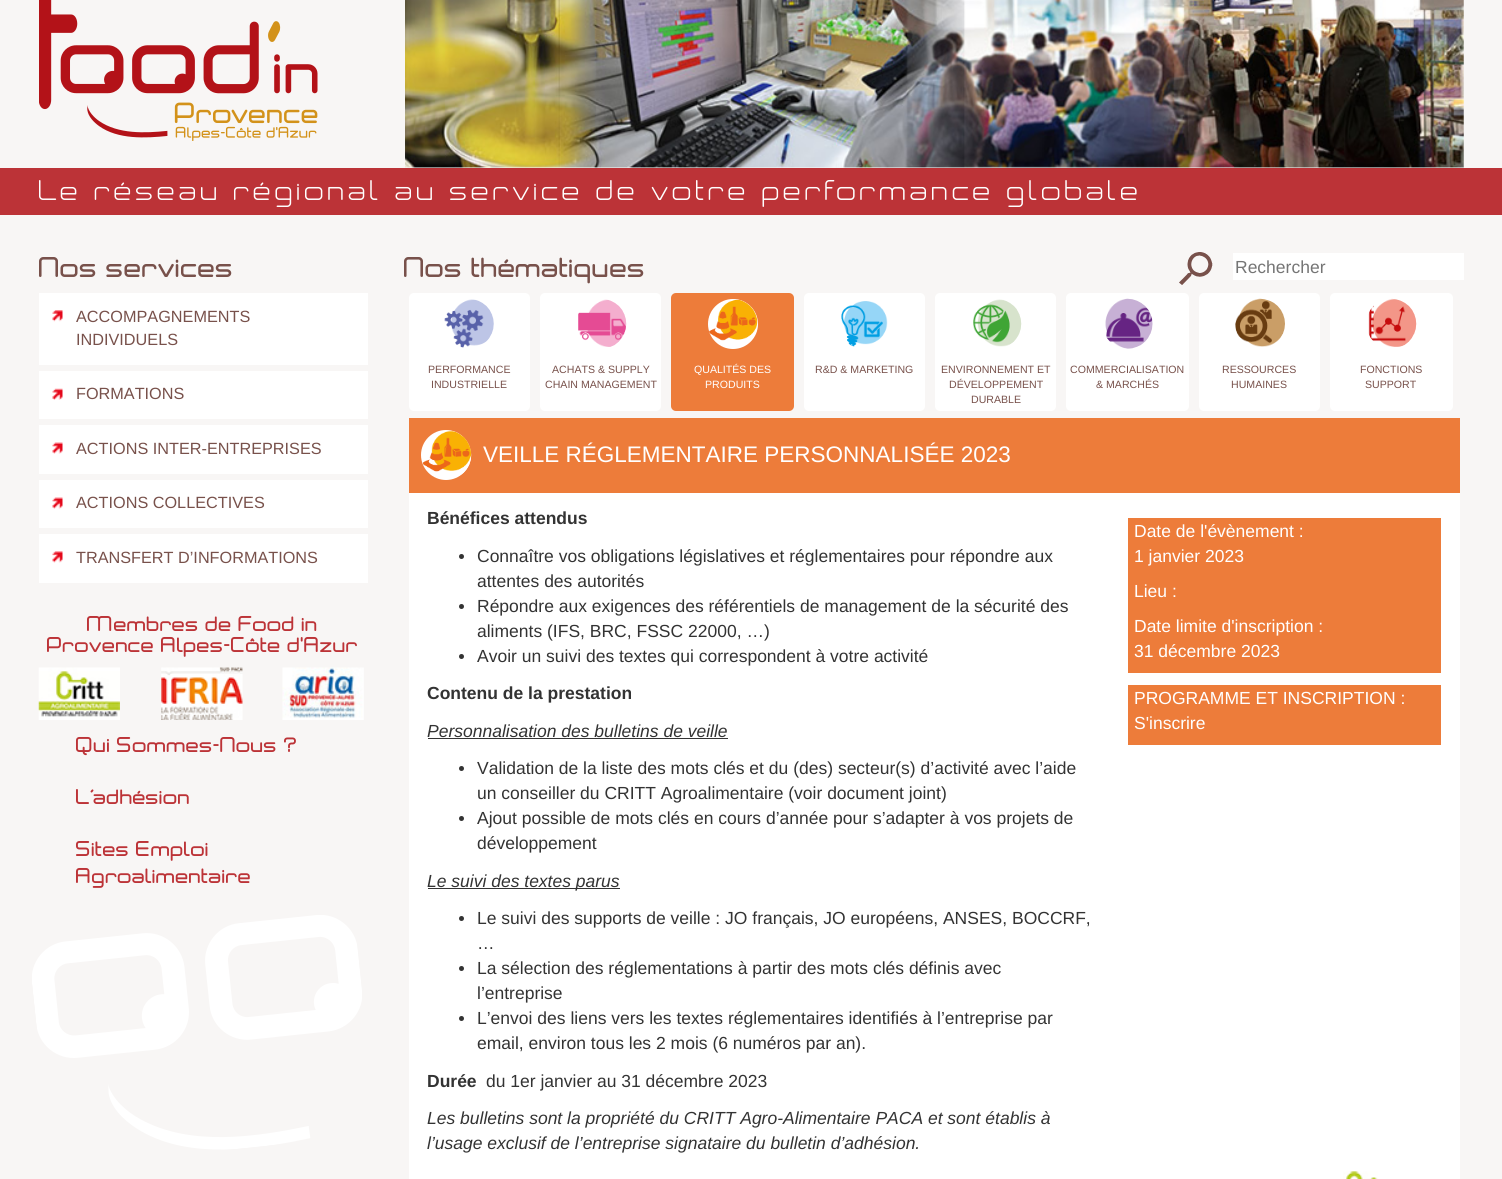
#include <cairo.h>
#include <math.h>
#include <stddef.h>


static void rgb(cairo_t *cr, int r, int g, int b)
{
	cairo_set_source_rgb(cr, r / 255.0, g / 255.0, b / 255.0);
}

static void face(cairo_t *cr, const char *family, double size, int italic, int bold)
{
	cairo_select_font_face(cr, family, italic ? CAIRO_FONT_SLANT_ITALIC : CAIRO_FONT_SLANT_NORMAL,
		bold ? CAIRO_FONT_WEIGHT_BOLD : CAIRO_FONT_WEIGHT_NORMAL);
	cairo_set_font_size(cr, size);
}

static void label(cairo_t *cr, double x, double y, const char *s)
{
	cairo_move_to(cr, x, y);
	cairo_show_text(cr, s);
}

static void tracked(cairo_t *cr, double x, double y, const char *s, double letter, double word)
{
	cairo_move_to(cr, x, y);
	while (*s) {
		char ch[5] = {0};
		int n = 0;
		do ch[n++] = *s++; while ((*s & 0xC0) == 0x80);
		cairo_show_text(cr, ch);
		cairo_rel_move_to(cr, letter + word * (*ch == ' '), 0);
	}
}

static void rect(cairo_t *cr, double x, double y, double w, double h)
{
	cairo_rectangle(cr, x, y, w, h);
	cairo_fill(cr);
}

static void rrect(cairo_t *cr, double x, double y, double w, double h, double r)
{
	cairo_new_sub_path(cr);
	cairo_arc(cr, x + w - r, y + h - r, r, 0, M_PI / 2);
	cairo_arc(cr, x + r, y + h - r, r, M_PI / 2, M_PI);
	cairo_arc(cr, x + r, y + r, r, M_PI, 1.5 * M_PI);
	cairo_arc(cr, x + w - r, y + r, r, 1.5 * M_PI, 2 * M_PI);
	cairo_close_path(cr);
}

static void image(cairo_t *cr, const char *path, double x, double y, double w, double h)
{
	cairo_surface_t *image = cairo_image_surface_create_from_png(path);
	cairo_save(cr);
	cairo_set_source_surface(cr, image, x, y);
	cairo_rectangle(cr, x, y, w, h);
	cairo_fill(cr);
	cairo_restore(cr);
	cairo_surface_destroy(image);
}

static void draw(cairo_t *cr) {
	rgb(cr, 248, 246, 245);
	cairo_paint(cr);
	image(cr, "image0.png", 39, 0, 279, 141);
	image(cr, "image1.png", 405, 0, 1059, 168);
	rgb(cr, 188, 51, 55);
	rect(cr, 0, 168, 1502, 47);
	face(cr, "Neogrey", 25, 0, 0);
	rgb(cr, 255, 255, 255);
	tracked(cr, 39, 200, "Le réseau régional au service de votre performance globale", 3.75, 0);
	face(cr, "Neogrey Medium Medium", 25, 0, 0);
	rgb(cr, 120, 81, 75);
	label(cr, 39, 277, "Nos services");
	rgb(cr, 255, 255, 255);
	rect(cr, 39, 293, 329, 72);
	image(cr, "image2.png", 52, 310, 11, 12);
	face(cr, "Liberation Sans", 16.25, 0, 0);
	rgb(cr, 120, 81, 75);
	label(cr, 76, 322, "ACCOMPAGNEMENTS");
	label(cr, 76, 345, "INDIVIDUELS");
	rgb(cr, 255, 255, 255);
	rect(cr, 39, 371, 329, 48);
	image(cr, "image3.png", 52, 388, 11, 12);
	rgb(cr, 120, 81, 75);
	label(cr, 76, 399, "FORMATIONS");
	rgb(cr, 255, 255, 255);
	rect(cr, 39, 425, 329, 49);
	image(cr, "image4.png", 52, 442, 11, 12);
	rgb(cr, 120, 81, 75);
	label(cr, 76, 454, "ACTIONS INTER-ENTREPRISES");
	rgb(cr, 255, 255, 255);
	rect(cr, 39, 480, 329, 48);
	image(cr, "image4.png", 52, 497, 11, 12);
	rgb(cr, 120, 81, 75);
	label(cr, 76, 508, "ACTIONS COLLECTIVES");
	rgb(cr, 255, 255, 255);
	rect(cr, 39, 534, 329, 49);
	image(cr, "image5.png", 52, 551, 11, 12);
	rgb(cr, 120, 81, 75);
	label(cr, 76, 563, "TRANSFERT D’INFORMATIONS");
	face(cr, "Neogrey Medium Medium", 18.75, 0, 0);
	rgb(cr, 188, 51, 55);
	label(cr, 87, 631, "Membres de Food in");
	label(cr, 47, 652, "Provence Alpes-Côte d'Azur");
	image(cr, "image6.png", 38, 667, 82, 53);
	image(cr, "image7.png", 161, 667, 82, 53);
	image(cr, "image8.png", 282, 667, 82, 53);
	label(cr, 76, 752, "Qui Sommes-Nous ?");
	label(cr, 76, 804, "L’adhésion");
	label(cr, 76, 856, "Sites Emploi");
	label(cr, 76, 883, "Agroalimentaire");
	image(cr, "image9.png", 32, 915, 330, 235);
	face(cr, "Neogrey Medium Medium", 25, 0, 0);
	rgb(cr, 120, 81, 75);
	label(cr, 404, 277, "Nos thématiques");
	image(cr, "image10.png", 1179, 252, 34, 33);
	rgb(cr, 255, 255, 255);
	rect(cr, 1233, 253, 231, 27);
	face(cr, "Liberation Sans", 17.5, 0, 0);
	rgb(cr, 117, 117, 117);
	label(cr, 1235, 273, "Rechercher");
	rgb(cr, 255, 255, 255);
	rrect(cr, 409, 293, 121, 118, 5);
	cairo_fill(cr);
	image(cr, "image11.png", 444, 299, 50, 49);
	face(cr, "Liberation Sans", 10.6, 0, 0);
	rgb(cr, 120, 81, 75);
	label(cr, 428, 373, "PERFORMANCE");
	label(cr, 431, 388, "INDUSTRIELLE");
	rgb(cr, 255, 255, 255);
	rrect(cr, 540, 293, 121, 118, 5);
	cairo_fill(cr);
	image(cr, "image12.png", 578, 299, 49, 48);
	rgb(cr, 120, 81, 75);
	label(cr, 552, 373, "ACHATS & SUPPLY");
	label(cr, 545, 388, "CHAIN MANAGEMENT");
	rgb(cr, 237, 124, 58);
	rrect(cr, 671, 293, 123, 118, 5);
	cairo_fill(cr);
	rgb(cr, 255, 255, 255);
	cairo_arc(cr, 733, 324, 25, 0, 2 * M_PI);
	cairo_fill(cr);
	image(cr, "image13.png", 709, 299, 49, 42);
	label(cr, 694, 373, "QUALITÉS DES");
	label(cr, 705, 388, "PRODUITS");
	rrect(cr, 804, 293, 121, 118, 5);
	cairo_fill(cr);
	image(cr, "image14.png", 841, 301, 47, 46);
	rgb(cr, 120, 81, 75);
	label(cr, 815, 373, "R&D & MARKETING");
	rgb(cr, 255, 255, 255);
	rrect(cr, 935, 293, 121, 118, 5);
	cairo_fill(cr);
	image(cr, "image15.png", 973, 299, 49, 48);
	rgb(cr, 120, 81, 75);
	label(cr, 941, 373, "ENVIRONNEMENT ET");
	label(cr, 949, 388, "DÉVELOPPEMENT");
	label(cr, 971, 403, "DURABLE");
	rgb(cr, 255, 255, 255);
	rrect(cr, 1066, 293, 123, 118, 5);
	cairo_fill(cr);
	image(cr, "image16.png", 1105, 298, 48, 51);
	rgb(cr, 120, 81, 75);
	label(cr, 1070, 373, "COMMERCIALISATION");
	label(cr, 1096, 388, "& MARCHÉS");
	rgb(cr, 255, 255, 255);
	rrect(cr, 1199, 293, 121, 118, 5);
	cairo_fill(cr);
	image(cr, "image17.png", 1235, 298, 50, 49);
	rgb(cr, 120, 81, 75);
	label(cr, 1222, 373, "RESSOURCES");
	label(cr, 1231, 388, "HUMAINES");
	rgb(cr, 255, 255, 255);
	rrect(cr, 1330, 293, 123, 118, 5);
	cairo_fill(cr);
	image(cr, "image18.png", 1368, 298, 49, 49);
	rgb(cr, 120, 81, 75);
	label(cr, 1360, 373, "FONCTIONS");
	label(cr, 1365, 388, "SUPPORT");
	rgb(cr, 255, 255, 255);
	rect(cr, 409, 493, 1051, 686);
	rgb(cr, 237, 124, 58);
	rect(cr, 409, 418, 1051, 75);
	rgb(cr, 255, 255, 255);
	cairo_new_path(cr);
	cairo_arc(cr, 446, 455, 25, 0, 2 * M_PI);
	cairo_fill(cr);
	image(cr, "image19.png", 422, 431, 50, 45);
	face(cr, "Liberation Sans", 22.5, 0, 0);
	label(cr, 483, 462, "VEILLE RÉGLEMENTAIRE PERSONNALISÉE 2023");
	face(cr, "Liberation Sans", 17.5, 0, 1);
	rgb(cr, 51, 51, 51);
	label(cr, 427, 524, "Bénéfices attendus");
	cairo_new_path(cr);
	cairo_arc(cr, 461.5, 556.5, 2.5, 0, 2 * M_PI);
	cairo_fill(cr);
	face(cr, "Liberation Sans", 17.5, 0, 0);
	label(cr, 477, 562, "Connaître vos obligations législatives et réglementaires pour répondre aux");
	label(cr, 477, 587, "attentes des autorités");
	cairo_new_path(cr);
	cairo_arc(cr, 461.5, 606.5, 2.5, 0, 2 * M_PI);
	cairo_fill(cr);
	label(cr, 477, 612, "Répondre aux exigences des référentiels de management de la sécurité des");
	label(cr, 477, 637, "aliments (IFS, BRC, FSSC 22000, …)");
	cairo_new_path(cr);
	cairo_arc(cr, 461.5, 656.5, 2.5, 0, 2 * M_PI);
	cairo_fill(cr);
	label(cr, 477, 662, "Avoir un suivi des textes qui correspondent à votre activité");
	face(cr, "Liberation Sans", 17.5, 0, 1);
	label(cr, 427, 699, "Contenu de la prestation");
	face(cr, "Liberation Sans", 17.5, 1, 0);
	label(cr, 427, 737, "Personnalisation des bulletins de veille");
	rect(cr, 428, 738, 300, 1);
	cairo_new_path(cr);
	cairo_arc(cr, 461.5, 768.5, 2.5, 0, 2 * M_PI);
	cairo_fill(cr);
	face(cr, "Liberation Sans", 17.5, 0, 0);
	label(cr, 477, 774, "Validation de la liste des mots clés et du (des) secteur(s) d’activité avec l’aide");
	label(cr, 477, 799, "un conseiller du CRITT Agroalimentaire (voir document joint)");
	cairo_new_path(cr);
	cairo_arc(cr, 461.5, 818.5, 2.5, 0, 2 * M_PI);
	cairo_fill(cr);
	label(cr, 477, 824, "Ajout possible de mots clés en cours d’année pour s’adapter à vos projets de");
	label(cr, 477, 849, "développement");
	rect(cr, 428, 888, 192, 1);
	face(cr, "Liberation Sans", 17.5, 1, 0);
	label(cr, 427, 887, "Le suivi des textes parus");
	cairo_new_path(cr);
	cairo_arc(cr, 461.5, 918.5, 2.5, 0, 2 * M_PI);
	cairo_fill(cr);
	face(cr, "Liberation Sans", 17.5, 0, 0);
	label(cr, 477, 924, "Le suivi des supports de veille : JO français, JO européens, ANSES, BOCCRF,");
	label(cr, 477, 949, "…");
	cairo_new_path(cr);
	cairo_arc(cr, 461.5, 968.5, 2.5, 0, 2 * M_PI);
	cairo_fill(cr);
	label(cr, 477, 974, "La sélection des réglementations à partir des mots clés définis avec");
	label(cr, 477, 999, "l’entreprise");
	cairo_new_path(cr);
	cairo_arc(cr, 461.5, 1018.5, 2.5, 0, 2 * M_PI);
	cairo_fill(cr);
	label(cr, 477, 1024, "L’envoi des liens vers les textes réglementaires identifiés à l’entreprise par");
	label(cr, 477, 1049, "email, environ tous les 2 mois (6 numéros par an).");
	face(cr, "Liberation Sans", 17.5, 0, 1);
	label(cr, 427, 1087, "Durée");
	face(cr, "Liberation Sans", 17.5, 0, 0);
	label(cr, 486, 1087, "du 1er janvier au 31 décembre 2023");
	face(cr, "Liberation Sans", 17.5, 1, 0);
	label(cr, 427, 1124, "Les bulletins sont la propriété du CRITT Agro-Alimentaire PACA et sont établis à");
	label(cr, 427, 1149, "l’usage exclusif de l’entreprise signataire du bulletin d’adhésion.");
	rgb(cr, 237, 124, 58);
	rect(cr, 1128, 518, 313, 155);
	face(cr, "Liberation Sans", 17.5, 0, 0);
	rgb(cr, 255, 255, 255);
	label(cr, 1134, 537, "Date de l'évènement :");
	label(cr, 1134, 562, "1 janvier 2023");
	label(cr, 1134, 597, "Lieu :");
	label(cr, 1134, 632, "Date limite d'inscription :");
	label(cr, 1134, 657, "31 décembre 2023");
	rgb(cr, 237, 124, 58);
	rect(cr, 1128, 685, 313, 60);
	rgb(cr, 255, 255, 255);
	label(cr, 1134, 704, "PROGRAMME ET INSCRIPTION :");
	label(cr, 1134, 729, "S'inscrire");
	image(cr, "image20.png", 1343, 1171, 35, 8);
}

int main(void) {
	cairo_surface_t *surface = cairo_image_surface_create(CAIRO_FORMAT_RGB24, 1502, 1179);
	cairo_t *cr = cairo_create(surface);
	cairo_font_options_t *options = cairo_font_options_create();
	cairo_font_options_set_hint_metrics(options, CAIRO_HINT_METRICS_OFF);
	cairo_font_options_set_hint_style(options, CAIRO_HINT_STYLE_NONE);
	cairo_set_font_options(cr, options);
	cairo_set_miter_limit(cr, 4);
	draw(cr);
	cairo_surface_write_to_png(surface, "render.png");
	cairo_font_options_destroy(options);
	cairo_destroy(cr);
	cairo_surface_destroy(surface);
	return 0;
}
